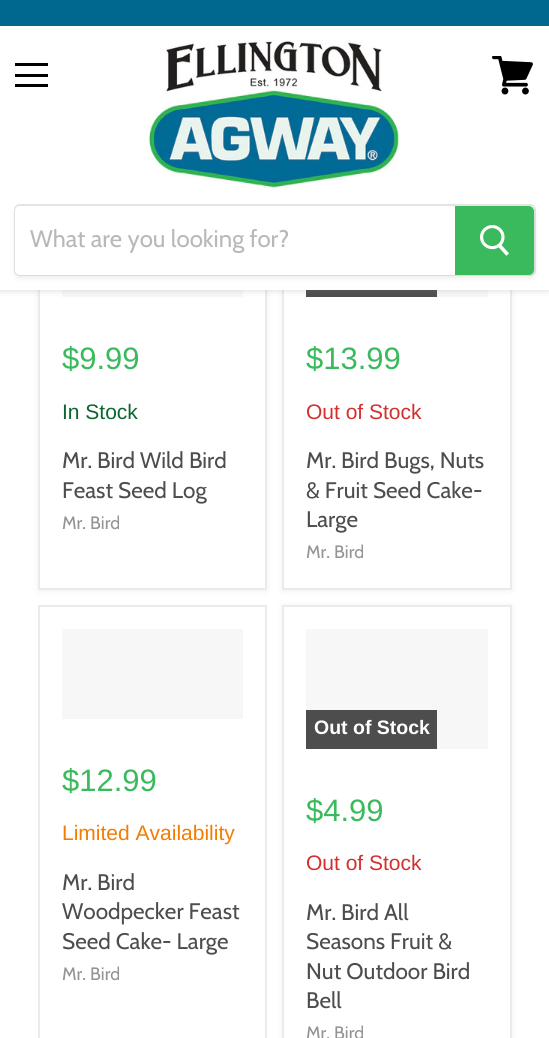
#include <cairo.h>
#include <math.h>
#include <stddef.h>


static void rgb(cairo_t *cr, int r, int g, int b)
{
	cairo_set_source_rgb(cr, r / 255.0, g / 255.0, b / 255.0);
}

static void face(cairo_t *cr, const char *family, double size, int italic, int bold)
{
	cairo_select_font_face(cr, family, italic ? CAIRO_FONT_SLANT_ITALIC : CAIRO_FONT_SLANT_NORMAL,
		bold ? CAIRO_FONT_WEIGHT_BOLD : CAIRO_FONT_WEIGHT_NORMAL);
	cairo_set_font_size(cr, size);
}

static void label(cairo_t *cr, double x, double y, const char *s)
{
	cairo_move_to(cr, x, y);
	cairo_show_text(cr, s);
}

static void rect(cairo_t *cr, double x, double y, double w, double h)
{
	cairo_rectangle(cr, x, y, w, h);
	cairo_fill(cr);
}

static void rrect(cairo_t *cr, double x, double y, double w, double h, double r)
{
	cairo_new_sub_path(cr);
	cairo_arc(cr, x + w - r, y + h - r, r, 0, M_PI / 2);
	cairo_arc(cr, x + r, y + h - r, r, M_PI / 2, M_PI);
	cairo_arc(cr, x + r, y + r, r, M_PI, 1.5 * M_PI);
	cairo_arc(cr, x + w - r, y + r, r, 1.5 * M_PI, 2 * M_PI);
	cairo_close_path(cr);
}

static void soft_shadow(cairo_t *cr, double x, double y, double w, double h, double r, double blur, double alpha)
{
	cairo_push_group_with_content(cr, CAIRO_CONTENT_ALPHA);
	cairo_set_operator(cr, CAIRO_OPERATOR_SOURCE);
	for (int i = 15; i >= -15 && fmin(w, h) + blur * i / 3 > 0; i -= 2) {
		double e = blur * i / 6;
		cairo_set_source_rgba(cr, 0, 0, 0, alpha * erfc((i - 1) / 8.5) / 2);
		rrect(cr, x - e, y - e, w + 2 * e, h + 2 * e, fmax(0, fmin(r + e + blur * .6, fmin(w, h) / 2 + e)));
		cairo_fill(cr);
	}
	cairo_pattern_t *soft = cairo_pop_group(cr);
	cairo_mask(cr, soft);
	cairo_pattern_destroy(soft);
}

static void image(cairo_t *cr, const char *path, double x, double y, double w, double h)
{
	cairo_surface_t *image = cairo_image_surface_create_from_png(path);
	cairo_save(cr);
	cairo_set_source_surface(cr, image, x, y);
	cairo_rectangle(cr, x, y, w, h);
	cairo_fill(cr);
	cairo_restore(cr);
	cairo_surface_destroy(image);
}

static void draw(cairo_t *cr) {
	rgb(cr, 255, 255, 255);
	cairo_paint(cr);
	rgb(cr, 127, 127, 127);
	soft_shadow(cr, 38, 185, 229, 406, 0, 3, 0.11);
	rgb(cr, 255, 255, 255);
	rect(cr, 40, 290, 225, 298);
	cairo_rectangle(cr, 39, 184, 227, 405);
	rgb(cr, 235, 235, 235);
	cairo_stroke(cr);
	rgb(cr, 247, 247, 247);
	rect(cr, 62, 290, 181, 7);
	rgb(cr, 127, 127, 127);
	soft_shadow(cr, 282, 185, 230, 406, 0, 3, 0.11);
	rgb(cr, 255, 255, 255);
	rect(cr, 284, 290, 226, 298);
	cairo_rectangle(cr, 283, 184, 228, 405);
	rgb(cr, 235, 235, 235);
	cairo_stroke(cr);
	rgb(cr, 77, 77, 77);
	rect(cr, 306, 290, 131, 7);
	rgb(cr, 247, 247, 247);
	rect(cr, 437, 290, 51, 7);
	rgb(cr, 127, 127, 127);
	soft_shadow(cr, 0, 27, 549, 264, 0, 3, 0.25);
	rgb(cr, 0, 104, 143);
	rect(cr, 0, 0, 549, 26);
	rgb(cr, 255, 255, 255);
	rect(cr, 0, 26, 549, 264);
	rgb(cr, 0, 0, 0);
	rect(cr, 15, 63, 33, 3);
	rect(cr, 15, 74, 33, 3);
	rect(cr, 15, 84, 33, 3);
	image(cr, "image0.png", 492, 56, 41, 39);
	image(cr, "image1.png", 148, 40, 253, 150);
	rgb(cr, 127, 127, 127);
	soft_shadow(cr, 14, 207, 522, 72, 6, 2, 0.11);
	rrect(cr, 15, 205, 520, 70, 5);
	cairo_set_source_rgba(cr, 0.498, 0.498, 0.498, 0.2);
	cairo_stroke(cr);
	rgb(cr, 255, 255, 255);
	cairo_new_path(cr);
	cairo_move_to(cr, 20, 206);
	cairo_line_to(cr, 455, 206);
	cairo_line_to(cr, 455, 275);
	cairo_line_to(cr, 20, 275);
	cairo_curve_to(cr, 17, 275, 15, 273, 15, 270);
	cairo_line_to(cr, 15, 211);
	cairo_curve_to(cr, 15, 208, 17, 206, 20, 206);
	cairo_close_path(cr);
	cairo_fill(cr);
	face(cr, "Cabin", 24, 0, 0);
	rgb(cr, 184, 184, 184);
	label(cr, 30, 247, "What are you looking for?");
	rgb(cr, 58, 186, 93);
	cairo_new_path(cr);
	cairo_move_to(cr, 456, 207);
	cairo_line_to(cr, 529, 207);
	cairo_curve_to(cr, 531, 207, 533, 209, 533, 211);
	cairo_line_to(cr, 533, 270);
	cairo_curve_to(cr, 533, 272, 531, 274, 529, 274);
	cairo_line_to(cr, 456, 274);
	cairo_close_path(cr);
	cairo_fill_preserve(cr);
	cairo_stroke(cr);
	image(cr, "image2.png", 480, 225, 29, 31);
	face(cr, "Liberation Sans", 31, 0, 0);
	label(cr, 62, 369, "$9.99");
	face(cr, "Liberation Sans", 21, 0, 0);
	rgb(cr, 12, 102, 47);
	label(cr, 62, 419, "In Stock");
	face(cr, "Cabin", 22.5, 0, 0);
	rgb(cr, 77, 77, 77);
	label(cr, 62, 468, "Mr. Bird Wild Bird");
	label(cr, 62, 498, "Feast Seed Log");
	face(cr, "Cabin", 18, 0, 0);
	rgb(cr, 148, 148, 148);
	label(cr, 62, 529, "Mr. Bird");
	face(cr, "Liberation Sans", 31, 0, 0);
	rgb(cr, 58, 186, 93);
	label(cr, 306, 369, "$13.99");
	face(cr, "Liberation Sans", 21, 0, 0);
	rgb(cr, 211, 47, 47);
	label(cr, 306, 419, "Out of Stock");
	face(cr, "Cabin", 22.5, 0, 0);
	rgb(cr, 77, 77, 77);
	label(cr, 306, 468, "Mr. Bird Bugs, Nuts");
	label(cr, 306, 498, "& Fruit Seed Cake-");
	label(cr, 306, 527, "Large");
	face(cr, "Cabin", 18, 0, 0);
	rgb(cr, 148, 148, 148);
	label(cr, 306, 558, "Mr. Bird");
	cairo_rectangle(cr, 39, 606, 227, 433);
	rgb(cr, 235, 235, 235);
	cairo_stroke(cr);
	rgb(cr, 247, 247, 247);
	rect(cr, 62, 629, 181, 90);
	face(cr, "Liberation Sans", 31, 0, 0);
	rgb(cr, 58, 186, 93);
	label(cr, 62, 791, "$12.99");
	face(cr, "Liberation Sans", 21, 0, 0);
	rgb(cr, 245, 124, 0);
	label(cr, 62, 840, "Limited Availability");
	face(cr, "Cabin", 22.5, 0, 0);
	rgb(cr, 77, 77, 77);
	label(cr, 62, 890, "Mr. Bird");
	label(cr, 62, 919, "Woodpecker Feast");
	label(cr, 62, 949, "Seed Cake- Large");
	face(cr, "Cabin", 18, 0, 0);
	rgb(cr, 148, 148, 148);
	label(cr, 62, 980, "Mr. Bird");
	rgb(cr, 127, 127, 127);
	soft_shadow(cr, 282, 606, 230, 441, 0, 3, 0.11);
	rgb(cr, 255, 255, 255);
	cairo_rectangle(cr, 283, 606, 228, 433);
	cairo_fill_preserve(cr);
	rgb(cr, 235, 235, 235);
	cairo_stroke(cr);
	rgb(cr, 247, 247, 247);
	rect(cr, 306, 629, 182, 120);
	rgb(cr, 77, 77, 77);
	rect(cr, 306, 710, 131, 39);
	face(cr, "Liberation Sans", 19.5, 0, 1);
	rgb(cr, 255, 255, 255);
	label(cr, 314, 734, "Out of Stock");
	face(cr, "Liberation Sans", 31, 0, 0);
	rgb(cr, 58, 186, 93);
	label(cr, 306, 821, "$4.99");
	face(cr, "Liberation Sans", 21, 0, 0);
	rgb(cr, 211, 47, 47);
	label(cr, 306, 870, "Out of Stock");
	face(cr, "Cabin", 22.5, 0, 0);
	rgb(cr, 77, 77, 77);
	label(cr, 306, 920, "Mr. Bird All");
	label(cr, 306, 949, "Seasons Fruit &");
	label(cr, 306, 979, "Nut Outdoor Bird");
	label(cr, 306, 1008, "Bell");
	face(cr, "Cabin", 18, 0, 0);
	rgb(cr, 148, 148, 148);
	label(cr, 306, 1039, "Mr. Bird");
}

int main(void) {
	cairo_surface_t *surface = cairo_image_surface_create(CAIRO_FORMAT_RGB24, 549, 1038);
	cairo_t *cr = cairo_create(surface);
	cairo_font_options_t *options = cairo_font_options_create();
	cairo_font_options_set_hint_metrics(options, CAIRO_HINT_METRICS_OFF);
	cairo_font_options_set_hint_style(options, CAIRO_HINT_STYLE_NONE);
	cairo_set_font_options(cr, options);
	cairo_set_miter_limit(cr, 4);
	draw(cr);
	cairo_surface_write_to_png(surface, "render.png");
	cairo_font_options_destroy(options);
	cairo_destroy(cr);
	cairo_surface_destroy(surface);
	return 0;
}
